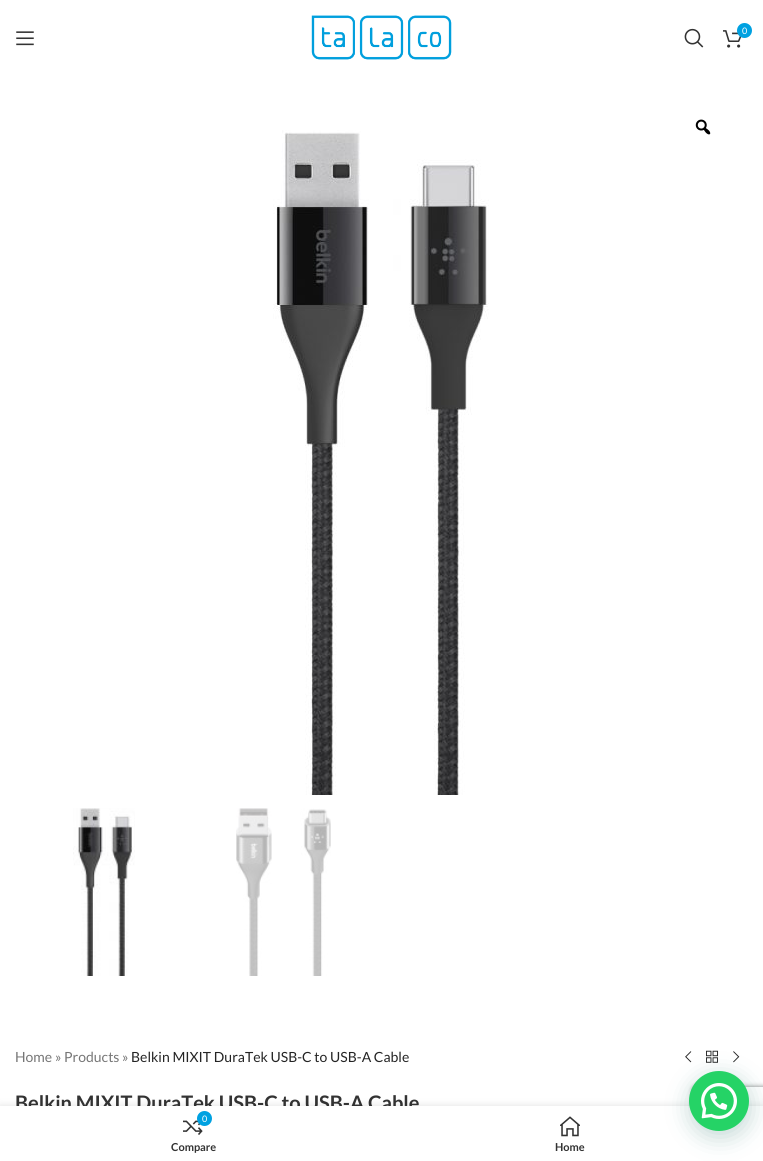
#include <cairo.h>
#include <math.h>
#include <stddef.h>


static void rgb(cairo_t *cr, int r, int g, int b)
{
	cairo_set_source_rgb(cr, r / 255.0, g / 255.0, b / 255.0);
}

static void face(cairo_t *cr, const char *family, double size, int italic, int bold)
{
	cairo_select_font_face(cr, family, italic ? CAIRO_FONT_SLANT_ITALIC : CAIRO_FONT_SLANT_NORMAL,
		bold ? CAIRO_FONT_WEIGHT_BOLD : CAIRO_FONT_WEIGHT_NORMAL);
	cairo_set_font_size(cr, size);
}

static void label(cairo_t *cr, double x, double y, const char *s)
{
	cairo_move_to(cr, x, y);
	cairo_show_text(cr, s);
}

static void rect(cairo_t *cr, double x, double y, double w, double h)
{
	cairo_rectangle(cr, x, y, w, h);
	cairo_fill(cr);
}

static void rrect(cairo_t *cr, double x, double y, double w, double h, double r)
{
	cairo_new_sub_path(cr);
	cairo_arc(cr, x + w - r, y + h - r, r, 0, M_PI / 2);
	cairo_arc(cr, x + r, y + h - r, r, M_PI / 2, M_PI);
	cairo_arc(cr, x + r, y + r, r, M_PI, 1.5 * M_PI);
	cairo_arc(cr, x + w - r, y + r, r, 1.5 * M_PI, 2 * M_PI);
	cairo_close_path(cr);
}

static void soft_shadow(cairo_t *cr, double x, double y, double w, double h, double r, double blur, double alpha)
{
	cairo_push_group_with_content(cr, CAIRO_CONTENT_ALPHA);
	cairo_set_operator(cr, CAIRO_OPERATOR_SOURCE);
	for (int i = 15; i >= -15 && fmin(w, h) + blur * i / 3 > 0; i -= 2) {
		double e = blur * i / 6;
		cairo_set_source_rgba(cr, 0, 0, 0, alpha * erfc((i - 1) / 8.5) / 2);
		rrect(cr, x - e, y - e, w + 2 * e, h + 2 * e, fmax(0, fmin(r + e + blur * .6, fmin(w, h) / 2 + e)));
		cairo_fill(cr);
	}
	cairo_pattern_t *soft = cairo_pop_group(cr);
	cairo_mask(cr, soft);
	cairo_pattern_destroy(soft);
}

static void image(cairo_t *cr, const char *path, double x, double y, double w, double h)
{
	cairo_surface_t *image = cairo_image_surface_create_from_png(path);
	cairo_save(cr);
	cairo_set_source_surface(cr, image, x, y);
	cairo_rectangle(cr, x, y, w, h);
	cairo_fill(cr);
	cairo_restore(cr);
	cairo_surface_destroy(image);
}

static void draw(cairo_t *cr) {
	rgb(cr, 255, 255, 255);
	cairo_paint(cr);
	image(cr, "image0.png", 16, 31, 18, 15);
	image(cr, "image1.png", 311, 15, 141, 45);
	image(cr, "image2.png", 684, 28, 20, 20);
	image(cr, "image3.png", 723, 30, 19, 18);
	rgb(cr, 0, 161, 225);
	cairo_arc(cr, 744.5, 30.5, 7.5, 0, 2 * M_PI);
	cairo_fill(cr);
	face(cr, "Lato", 9, 0, 0);
	rgb(cr, 255, 255, 255);
	label(cr, 742, 34, "0");
	image(cr, "image4.png", 695, 119, 16, 16);
	image(cr, "image5.png", 273, 130, 216, 665);
	image(cr, "image6.png", 73, 808, 62, 168);
	image(cr, "image7.png", 236, 808, 95, 168);
	face(cr, "Lato", 14, 0, 0);
	rgb(cr, 118, 118, 118);
	label(cr, 15, 1062, "Home");
	label(cr, 55, 1062, "»");
	label(cr, 64, 1062, "Products");
	label(cr, 122, 1062, "»");
	rgb(cr, 36, 36, 36);
	label(cr, 131, 1062, "Belkin MIXIT DuraTek USB-C to USB-A Cable");
	image(cr, "image8.png", 685, 1051, 7, 12);
	image(cr, "image9.png", 706, 1050, 12, 13);
	image(cr, "image10.png", 733, 1051, 7, 12);
	face(cr, "Lato", 20, 0, 1);
	rgb(cr, 51, 51, 51);
	label(cr, 15, 1110, "Belkin MIXIT DuraTek USB-C to USB-A Cable");
	rgb(cr, 0, 0, 0);
	soft_shadow(cr, 0, 1106, 763, 55, 0, 4.5, 0.12);
	cairo_save(cr);
	cairo_set_fill_rule(cr, CAIRO_FILL_RULE_EVEN_ODD);
	cairo_new_path(cr);
	cairo_move_to(cr, 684, 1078);
	cairo_line_to(cr, 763, 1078);
	cairo_line_to(cr, 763, 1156);
	cairo_line_to(cr, 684, 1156);
	cairo_close_path(cr);
	cairo_move_to(cr, 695, 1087);
	cairo_line_to(cr, 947, 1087);
	cairo_curve_to(cr, 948, 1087, 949, 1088, 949, 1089);
	cairo_line_to(cr, 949, 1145);
	cairo_curve_to(cr, 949, 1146, 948, 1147, 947, 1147);
	cairo_line_to(cr, 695, 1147);
	cairo_curve_to(cr, 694, 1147, 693, 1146, 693, 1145);
	cairo_line_to(cr, 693, 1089);
	cairo_curve_to(cr, 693, 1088, 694, 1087, 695, 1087);
	cairo_close_path(cr);
	cairo_clip(cr);
	rgb(cr, 128, 128, 128);
	soft_shadow(cr, 693, 1087, 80, 60, 2, 2.5, 1);
	cairo_restore(cr);
	rgb(cr, 255, 255, 255);
	rect(cr, 0, 1106, 763, 55);
	rgb(cr, 7, 94, 84);
	soft_shadow(cr, 690, 1077, 60, 60, 30, 12, 0.24);
	rgb(cr, 37, 211, 102);
	cairo_arc(cr, 719, 1101, 30, 0, 2 * M_PI);
	cairo_fill(cr);
	image(cr, "image11.png", 701, 1083, 36, 36);
	image(cr, "image12.png", 183, 1120, 20, 15);
	rgb(cr, 0, 161, 225);
	cairo_arc(cr, 204.5, 1118.5, 7.5, 0, 2 * M_PI);
	cairo_fill(cr);
	face(cr, "Lato", 9, 0, 0);
	rgb(cr, 255, 255, 255);
	label(cr, 202, 1122, "0");
	face(cr, "Lato", 11, 0, 1);
	rgb(cr, 51, 51, 51);
	label(cr, 171, 1151, "Compare");
	image(cr, "image13.png", 560, 1116, 20, 21);
	label(cr, 555, 1151, "Home");
}

int main(void) {
	cairo_surface_t *surface = cairo_image_surface_create(CAIRO_FORMAT_RGB24, 763, 1161);
	cairo_t *cr = cairo_create(surface);
	cairo_font_options_t *options = cairo_font_options_create();
	cairo_font_options_set_hint_metrics(options, CAIRO_HINT_METRICS_OFF);
	cairo_font_options_set_hint_style(options, CAIRO_HINT_STYLE_NONE);
	cairo_set_font_options(cr, options);
	cairo_set_miter_limit(cr, 4);
	draw(cr);
	cairo_surface_write_to_png(surface, "render.png");
	cairo_font_options_destroy(options);
	cairo_destroy(cr);
	cairo_surface_destroy(surface);
	return 0;
}
